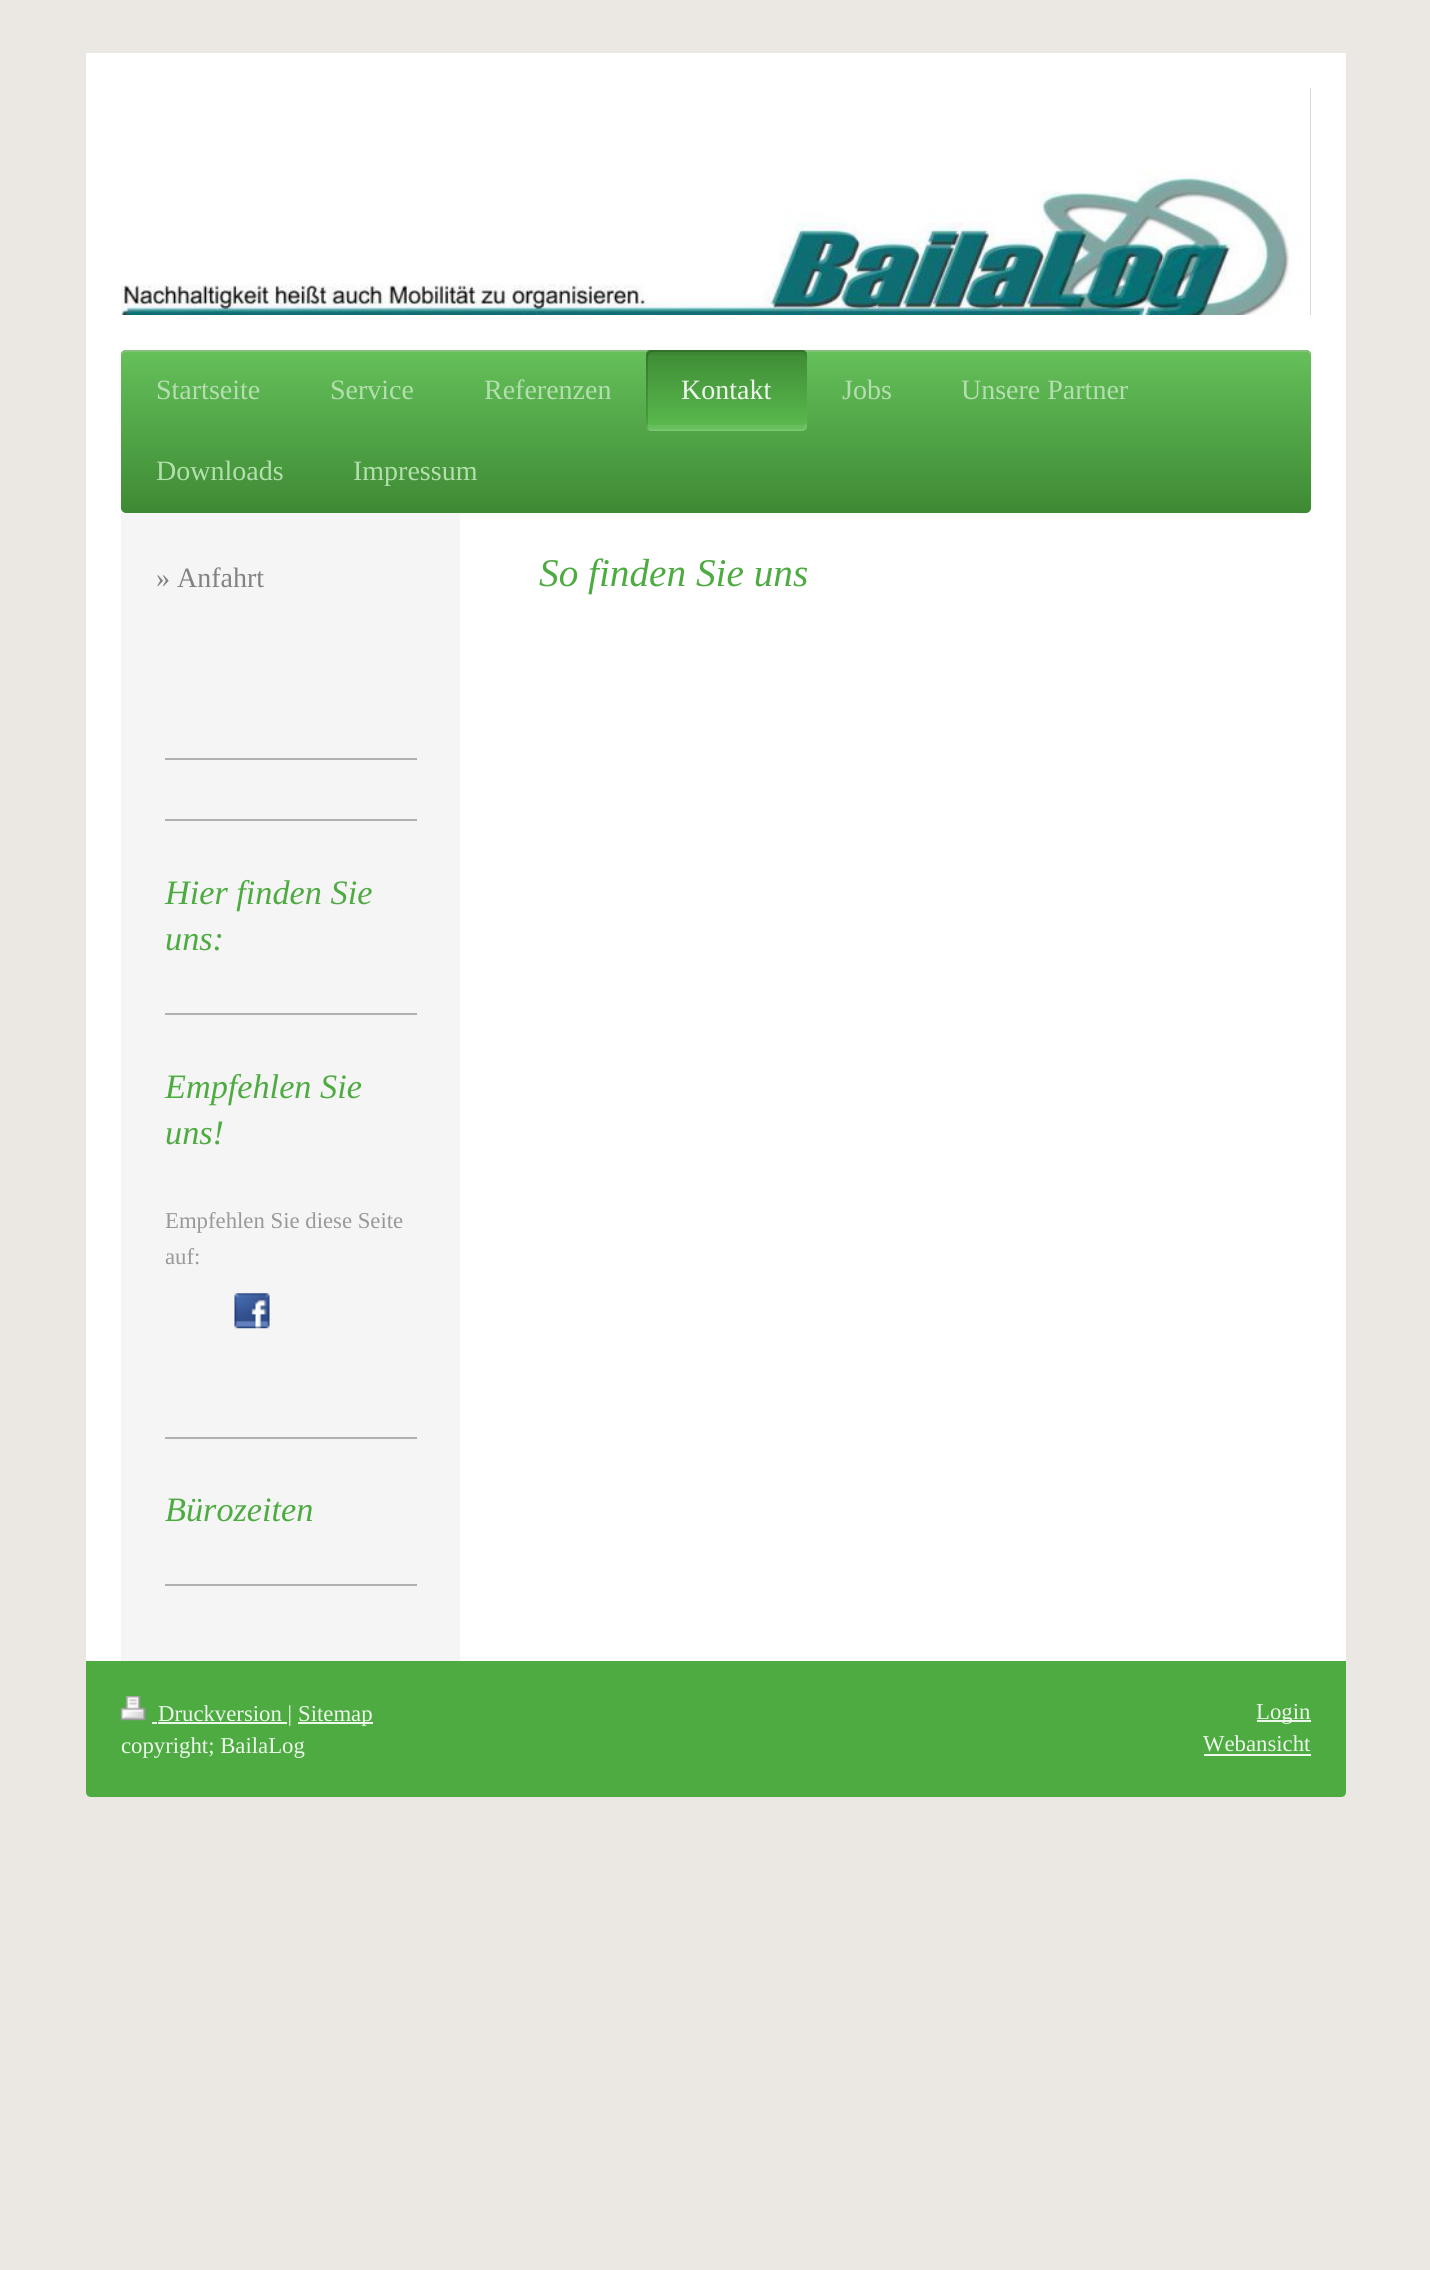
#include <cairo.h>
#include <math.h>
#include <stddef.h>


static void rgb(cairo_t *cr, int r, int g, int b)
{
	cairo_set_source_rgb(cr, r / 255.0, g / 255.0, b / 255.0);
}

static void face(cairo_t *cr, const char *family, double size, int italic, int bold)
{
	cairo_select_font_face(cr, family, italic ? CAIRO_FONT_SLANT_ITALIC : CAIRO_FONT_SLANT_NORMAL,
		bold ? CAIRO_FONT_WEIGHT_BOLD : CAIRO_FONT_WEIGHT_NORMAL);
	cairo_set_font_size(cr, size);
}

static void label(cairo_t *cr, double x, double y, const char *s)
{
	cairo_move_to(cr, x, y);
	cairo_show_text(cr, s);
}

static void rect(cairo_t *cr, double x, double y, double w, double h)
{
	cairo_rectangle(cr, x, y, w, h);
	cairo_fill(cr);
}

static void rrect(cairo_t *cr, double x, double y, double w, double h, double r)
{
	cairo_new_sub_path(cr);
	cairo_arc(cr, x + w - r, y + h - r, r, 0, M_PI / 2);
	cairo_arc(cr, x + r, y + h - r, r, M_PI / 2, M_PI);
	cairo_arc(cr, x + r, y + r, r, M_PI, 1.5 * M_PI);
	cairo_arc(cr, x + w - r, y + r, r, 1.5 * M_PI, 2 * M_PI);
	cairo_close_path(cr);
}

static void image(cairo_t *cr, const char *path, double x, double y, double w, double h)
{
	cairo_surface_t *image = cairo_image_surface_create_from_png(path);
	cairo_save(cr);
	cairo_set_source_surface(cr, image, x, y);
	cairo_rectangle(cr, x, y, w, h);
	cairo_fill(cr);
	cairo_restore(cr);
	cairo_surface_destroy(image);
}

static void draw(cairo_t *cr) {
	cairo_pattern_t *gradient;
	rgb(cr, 235, 231, 226);
	cairo_paint(cr);
	rgb(cr, 255, 255, 255);
	cairo_new_path(cr);
	cairo_move_to(cr, 86, 53);
	cairo_line_to(cr, 1346, 53);
	cairo_line_to(cr, 1346, 1792);
	cairo_curve_to(cr, 1346, 1795, 1344, 1797, 1341, 1797);
	cairo_line_to(cr, 91, 1797);
	cairo_curve_to(cr, 88, 1797, 86, 1795, 86, 1792);
	cairo_close_path(cr);
	cairo_fill(cr);
	rgb(cr, 160, 160, 160);
	rect(cr, 1310, 88, 1, 227);
	image(cr, "image0.png", 121, 88, 1190, 227);
	gradient = cairo_pattern_create_linear(121, 350, 121, 513);
	cairo_pattern_add_color_stop_rgba(gradient, 0, 0.396, 0.753, 0.353, 1);
	cairo_pattern_add_color_stop_rgba(gradient, 1, 0.243, 0.541, 0.204, 1);
	cairo_set_source(cr, gradient);
	cairo_pattern_destroy(gradient);
	rrect(cr, 121, 350, 1190, 163, 5);
	cairo_fill(cr);
	rgb(cr, 75, 167, 64);
	cairo_new_path(cr);
	cairo_move_to(cr, 126, 352);
	cairo_line_to(cr, 1306, 352);
	cairo_curve_to(cr, 1308, 352, 1311, 354, 1311, 357);
	cairo_line_to(cr, 1311, 355);
	cairo_curve_to(cr, 1311, 352, 1309, 350, 1306, 350);
	cairo_line_to(cr, 126, 350);
	cairo_curve_to(cr, 123, 350, 121, 352, 121, 355);
	cairo_line_to(cr, 121, 357);
	cairo_curve_to(cr, 121, 354, 123, 352, 126, 352);
	cairo_close_path(cr);
	cairo_fill(cr);
	cairo_set_source_rgba(cr, 1, 1, 1, 0.3);
	cairo_new_path(cr);
	cairo_move_to(cr, 126, 352);
	cairo_line_to(cr, 1306, 352);
	cairo_curve_to(cr, 1308, 352, 1311, 354, 1311, 357);
	cairo_line_to(cr, 1311, 355);
	cairo_curve_to(cr, 1311, 352, 1309, 350, 1306, 350);
	cairo_line_to(cr, 126, 350);
	cairo_curve_to(cr, 123, 350, 121, 352, 121, 355);
	cairo_line_to(cr, 121, 357);
	cairo_curve_to(cr, 121, 354, 123, 352, 126, 352);
	cairo_close_path(cr);
	cairo_fill(cr);
	face(cr, "Liberation Serif", 28, 0, 0);
	rgb(cr, 179, 223, 174);
	label(cr, 156, 399, "Startseite");
	label(cr, 330, 399, "Service");
	label(cr, 484, 399, "Referenzen");
	gradient = cairo_pattern_create_linear(646, 431, 646, 350);
	cairo_pattern_add_color_stop_rgba(gradient, 0, 0.357, 0.737, 0.31, 1);
	cairo_pattern_add_color_stop_rgba(gradient, 1, 0.243, 0.541, 0.204, 1);
	cairo_set_source(cr, gradient);
	cairo_pattern_destroy(gradient);
	rrect(cr, 646, 350, 161, 81, 5);
	cairo_fill(cr);
	cairo_set_source_rgba(cr, 0, 0, 0, 0.15);
	cairo_new_path(cr);
	cairo_move_to(cr, 653, 352);
	cairo_line_to(cr, 804, 352);
	cairo_line_to(cr, 807, 354);
	cairo_curve_to(cr, 806, 351, 804, 350, 802, 350);
	cairo_line_to(cr, 651, 350);
	cairo_curve_to(cr, 648, 350, 646, 352, 646, 355);
	cairo_line_to(cr, 646, 426);
	cairo_curve_to(cr, 646, 428, 647, 430, 650, 431);
	cairo_curve_to(cr, 649, 430, 648, 429, 648, 427);
	cairo_line_to(cr, 648, 357);
	cairo_curve_to(cr, 648, 354, 650, 352, 653, 352);
	cairo_close_path(cr);
	cairo_fill(cr);
	cairo_set_source_rgba(cr, 0, 0, 0, 0.04);
	cairo_new_path(cr);
	cairo_move_to(cr, 651, 355);
	cairo_line_to(cr, 802, 355);
	cairo_curve_to(cr, 804, 355, 807, 358, 807, 360);
	cairo_line_to(cr, 807, 355);
	cairo_curve_to(cr, 807, 352, 805, 350, 802, 350);
	cairo_line_to(cr, 651, 350);
	cairo_curve_to(cr, 648, 350, 646, 352, 646, 355);
	cairo_line_to(cr, 646, 360);
	cairo_curve_to(cr, 646, 358, 648, 355, 651, 355);
	cairo_close_path(cr);
	cairo_fill(cr);
	cairo_set_source_rgba(cr, 1, 1, 1, 0.08);
	cairo_new_path(cr);
	cairo_move_to(cr, 646, 420);
	cairo_line_to(cr, 646, 426);
	cairo_curve_to(cr, 646, 429, 648, 431, 651, 431);
	cairo_line_to(cr, 802, 431);
	cairo_curve_to(cr, 805, 431, 807, 429, 807, 426);
	cairo_line_to(cr, 807, 420);
	cairo_curve_to(cr, 807, 423, 804, 425, 802, 425);
	cairo_line_to(cr, 651, 425);
	cairo_curve_to(cr, 648, 425, 646, 423, 646, 420);
	cairo_close_path(cr);
	cairo_fill(cr);
	cairo_set_source_rgba(cr, 1, 1, 1, 0.1);
	cairo_new_path(cr);
	cairo_move_to(cr, 646, 424);
	cairo_line_to(cr, 646, 426);
	cairo_curve_to(cr, 646, 429, 648, 431, 651, 431);
	cairo_line_to(cr, 802, 431);
	cairo_curve_to(cr, 805, 431, 807, 429, 807, 426);
	cairo_line_to(cr, 807, 424);
	cairo_line_to(cr, 805, 427);
	cairo_line_to(cr, 802, 429);
	cairo_line_to(cr, 651, 429);
	cairo_curve_to(cr, 648, 429, 646, 427, 646, 424);
	cairo_close_path(cr);
	cairo_fill(cr);
	rgb(cr, 237, 247, 236);
	label(cr, 681, 399, "Kontakt");
	rgb(cr, 179, 223, 174);
	label(cr, 842, 399, "Jobs");
	label(cr, 961, 399, "Unsere Partner");
	label(cr, 156, 480, "Downloads");
	label(cr, 353, 480, "Impressum");
	rgb(cr, 245, 245, 245);
	rect(cr, 121, 513, 339, 1148);
	face(cr, "Liberation Serif", 39.25, 1, 0);
	rgb(cr, 77, 171, 65);
	label(cr, 539, 586, "So finden Sie uns");
	face(cr, "Liberation Serif", 28, 0, 0);
	rgb(cr, 130, 130, 130);
	label(cr, 156, 587, "» Anfahrt");
	rgb(cr, 176, 176, 176);
	rect(cr, 165, 758, 252, 2);
	rect(cr, 165, 819, 252, 2);
	face(cr, "Liberation Serif", 34.25, 1, 0);
	rgb(cr, 77, 171, 65);
	label(cr, 165, 904, "Hier finden Sie");
	label(cr, 165, 950, "uns:");
	rgb(cr, 176, 176, 176);
	rect(cr, 165, 1013, 252, 2);
	rgb(cr, 77, 171, 65);
	label(cr, 165, 1098, "Empfehlen Sie");
	label(cr, 165, 1144, "uns!");
	face(cr, "Liberation Serif", 22.75, 0, 0);
	rgb(cr, 153, 153, 153);
	label(cr, 165, 1228, "Empfehlen Sie diese Seite");
	label(cr, 165, 1264, "auf:");
	image(cr, "image1.png", 234, 1293, 36, 36);
	rgb(cr, 176, 176, 176);
	rect(cr, 165, 1437, 252, 2);
	face(cr, "Liberation Serif", 34.25, 1, 0);
	rgb(cr, 77, 171, 65);
	label(cr, 165, 1521, "Bürozeiten");
	rgb(cr, 176, 176, 176);
	rect(cr, 165, 1584, 252, 2);
	rgb(cr, 77, 171, 65);
	cairo_new_path(cr);
	cairo_move_to(cr, 86, 1661);
	cairo_line_to(cr, 1346, 1661);
	cairo_line_to(cr, 1346, 1792);
	cairo_curve_to(cr, 1346, 1795, 1344, 1797, 1341, 1797);
	cairo_line_to(cr, 91, 1797);
	cairo_curve_to(cr, 88, 1797, 86, 1795, 86, 1792);
	cairo_close_path(cr);
	cairo_fill(cr);
	image(cr, "image2.png", 120, 1695, 26, 26);
	rgb(cr, 237, 247, 236);
	rect(cr, 158, 1722, 129, 2);
	face(cr, "Liberation Serif", 22.75, 0, 0);
	label(cr, 158, 1721, "Druckversion |");
	rect(cr, 152, 1722, 5, 2);
	rect(cr, 298, 1722, 75, 2);
	label(cr, 298, 1721, "Sitemap");
	label(cr, 121, 1753, "copyright; BailaLog");
	rect(cr, 1257, 1720, 54, 2);
	label(cr, 1256, 1719, "Login");
	label(cr, 1203, 1751, "Webansicht");
	rect(cr, 1204, 1754, 107, 2);
}

int main(void) {
	cairo_surface_t *surface = cairo_image_surface_create(CAIRO_FORMAT_RGB24, 1430, 2270);
	cairo_t *cr = cairo_create(surface);
	cairo_font_options_t *options = cairo_font_options_create();
	cairo_font_options_set_hint_metrics(options, CAIRO_HINT_METRICS_OFF);
	cairo_font_options_set_hint_style(options, CAIRO_HINT_STYLE_NONE);
	cairo_set_font_options(cr, options);
	cairo_set_miter_limit(cr, 4);
	draw(cr);
	cairo_surface_write_to_png(surface, "render.png");
	cairo_font_options_destroy(options);
	cairo_destroy(cr);
	cairo_surface_destroy(surface);
	return 0;
}
